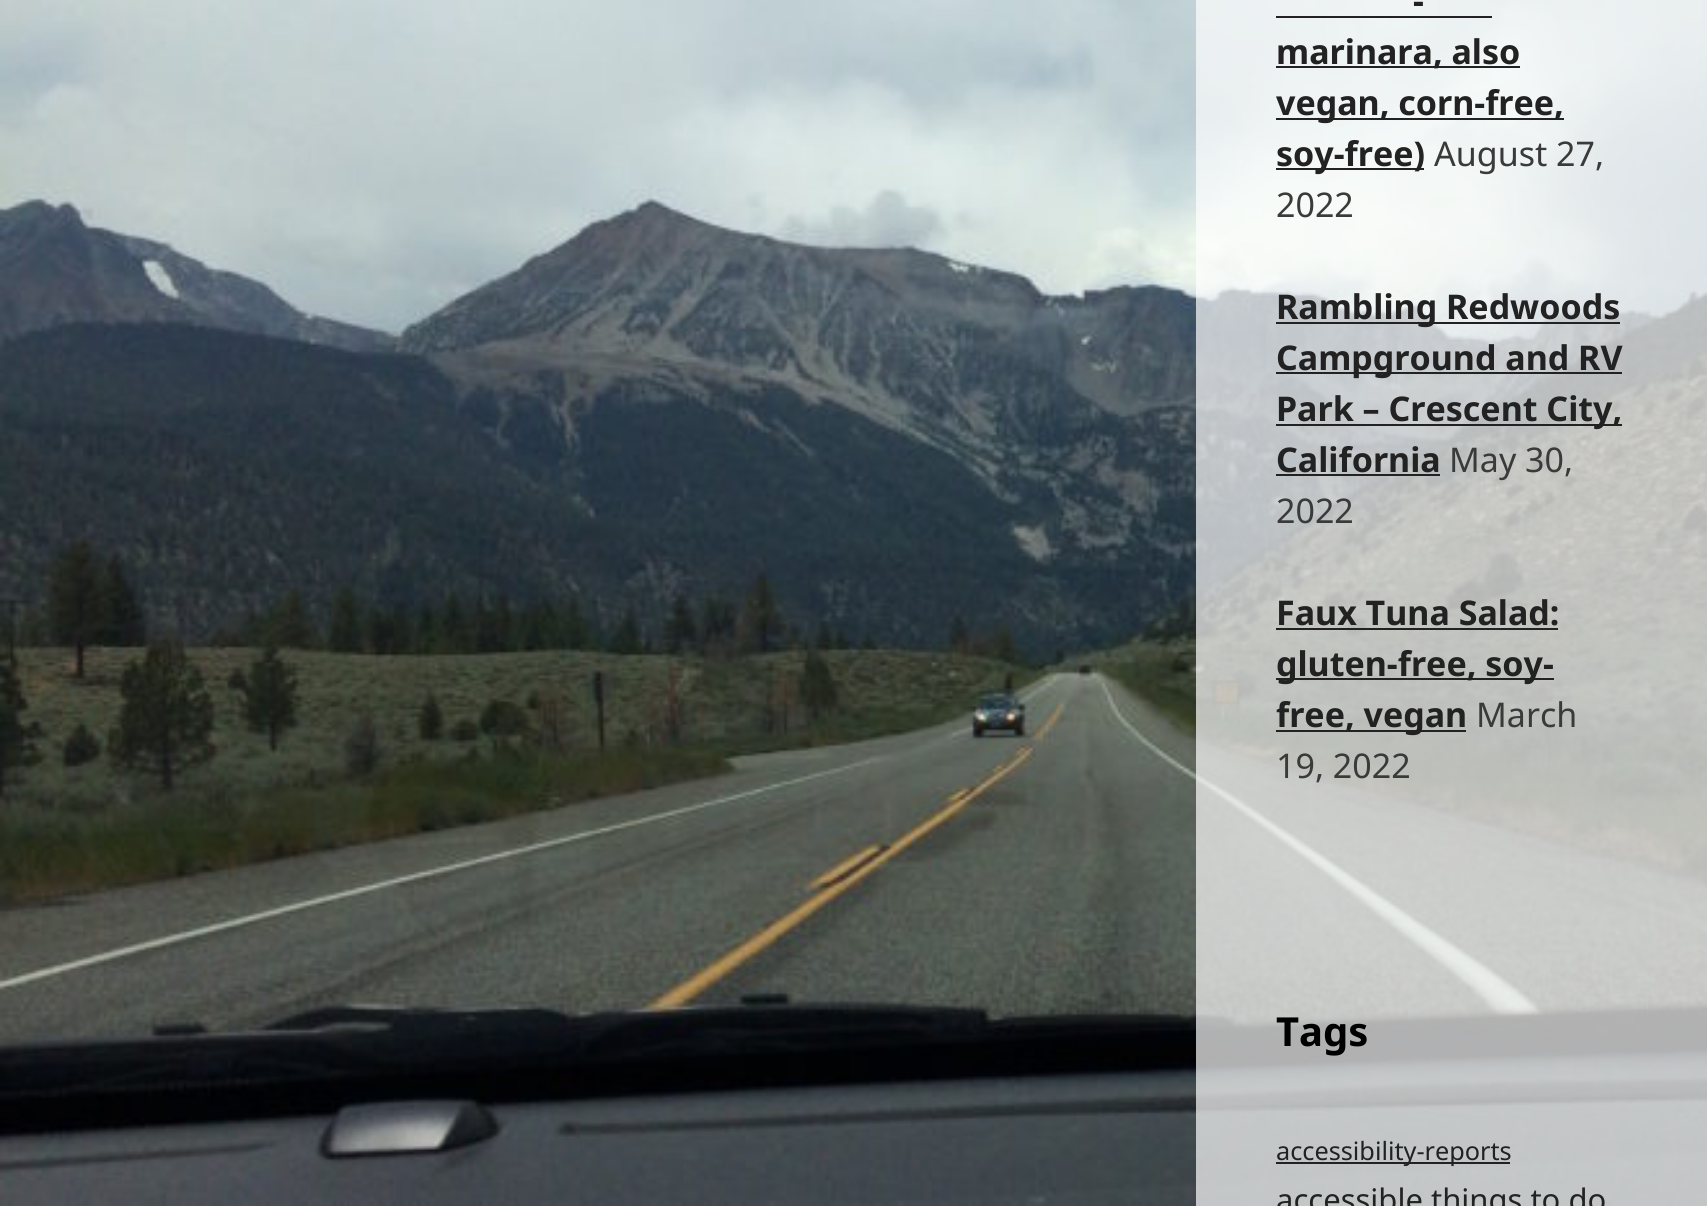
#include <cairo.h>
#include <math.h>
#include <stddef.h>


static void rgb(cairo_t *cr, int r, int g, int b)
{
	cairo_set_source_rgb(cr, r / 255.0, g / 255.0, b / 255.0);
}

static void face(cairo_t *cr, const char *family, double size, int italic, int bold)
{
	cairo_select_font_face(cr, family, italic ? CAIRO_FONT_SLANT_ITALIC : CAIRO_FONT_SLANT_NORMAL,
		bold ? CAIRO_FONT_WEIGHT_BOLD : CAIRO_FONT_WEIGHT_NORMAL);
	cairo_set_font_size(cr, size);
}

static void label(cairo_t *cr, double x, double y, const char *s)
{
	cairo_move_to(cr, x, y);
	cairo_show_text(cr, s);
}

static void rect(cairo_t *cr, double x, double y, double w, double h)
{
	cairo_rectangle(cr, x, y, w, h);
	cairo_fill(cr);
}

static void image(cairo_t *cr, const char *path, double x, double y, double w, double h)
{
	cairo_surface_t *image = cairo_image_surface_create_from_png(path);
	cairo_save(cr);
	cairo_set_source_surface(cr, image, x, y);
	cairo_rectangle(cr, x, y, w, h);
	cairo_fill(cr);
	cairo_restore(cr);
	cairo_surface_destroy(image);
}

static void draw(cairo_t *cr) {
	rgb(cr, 255, 255, 255);
	cairo_paint(cr);
	image(cr, "image0.png", 0, 0, 1707, 1206);
	cairo_set_source_rgba(cr, 1, 1, 1, 0.69);
	rect(cr, 1196, 0, 511, 922);
	face(cr, "Noto Sans", 34, 0, 1);
	rgb(cr, 34, 34, 34);
	label(cr, 1413, 13, "-");
	rect(cr, 1276, 16, 216, 2);
	rect(cr, 1276, 66, 244, 2);
	label(cr, 1276, 64, "marinara, also");
	rect(cr, 1276, 118, 288, 2);
	label(cr, 1276, 115, "vegan, corn-free,");
	rect(cr, 1276, 168, 148, 2);
	label(cr, 1276, 166, "soy-free)");
	face(cr, "Noto Sans", 34, 0, 0);
	rgb(cr, 58, 58, 58);
	label(cr, 1434, 166, "August 27,");
	label(cr, 1276, 217, "2022");
	rgb(cr, 34, 34, 34);
	rect(cr, 1276, 322, 344, 2);
	face(cr, "Noto Sans", 34, 0, 1);
	label(cr, 1276, 319, "Rambling Redwoods");
	rect(cr, 1276, 372, 346, 2);
	label(cr, 1276, 370, "Campground and RV");
	rect(cr, 1276, 424, 346, 2);
	label(cr, 1276, 421, "Park – Crescent City,");
	label(cr, 1276, 472, "California");
	rect(cr, 1276, 474, 164, 2);
	face(cr, "Noto Sans", 34, 0, 0);
	rgb(cr, 58, 58, 58);
	label(cr, 1449, 472, "May 30,");
	label(cr, 1276, 523, "2022");
	face(cr, "Noto Sans", 34, 0, 1);
	rgb(cr, 34, 34, 34);
	label(cr, 1276, 625, "Faux Tuna Salad:");
	rect(cr, 1276, 628, 282, 2);
	rect(cr, 1276, 678, 278, 2);
	label(cr, 1276, 676, "gluten-free, soy-");
	rect(cr, 1276, 730, 190, 2);
	label(cr, 1276, 727, "free, vegan");
	face(cr, "Noto Sans", 34, 0, 0);
	rgb(cr, 58, 58, 58);
	label(cr, 1476, 727, "March");
	label(cr, 1276, 778, "19, 2022");
	cairo_set_source_rgba(cr, 1, 1, 1, 0.69);
	rect(cr, 1196, 922, 511, 284);
	face(cr, "Noto Sans", 40, 0, 1);
	rgb(cr, 0, 0, 0);
	label(cr, 1276, 1046, "Tags");
	rgb(cr, 34, 34, 34);
	rect(cr, 1276, 1162, 234, 2);
	face(cr, "Noto Sans", 25.25, 0, 0);
	label(cr, 1276, 1160, "accessibility-reports");
	face(cr, "Noto Sans", 31, 0, 0);
	label(cr, 1276, 1211, "accessible things to do");
}

int main(void) {
	cairo_surface_t *surface = cairo_image_surface_create(CAIRO_FORMAT_RGB24, 1707, 1206);
	cairo_t *cr = cairo_create(surface);
	cairo_font_options_t *options = cairo_font_options_create();
	cairo_font_options_set_hint_metrics(options, CAIRO_HINT_METRICS_OFF);
	cairo_font_options_set_hint_style(options, CAIRO_HINT_STYLE_NONE);
	cairo_set_font_options(cr, options);
	cairo_set_miter_limit(cr, 4);
	draw(cr);
	cairo_surface_write_to_png(surface, "render.png");
	cairo_font_options_destroy(options);
	cairo_destroy(cr);
	cairo_surface_destroy(surface);
	return 0;
}
